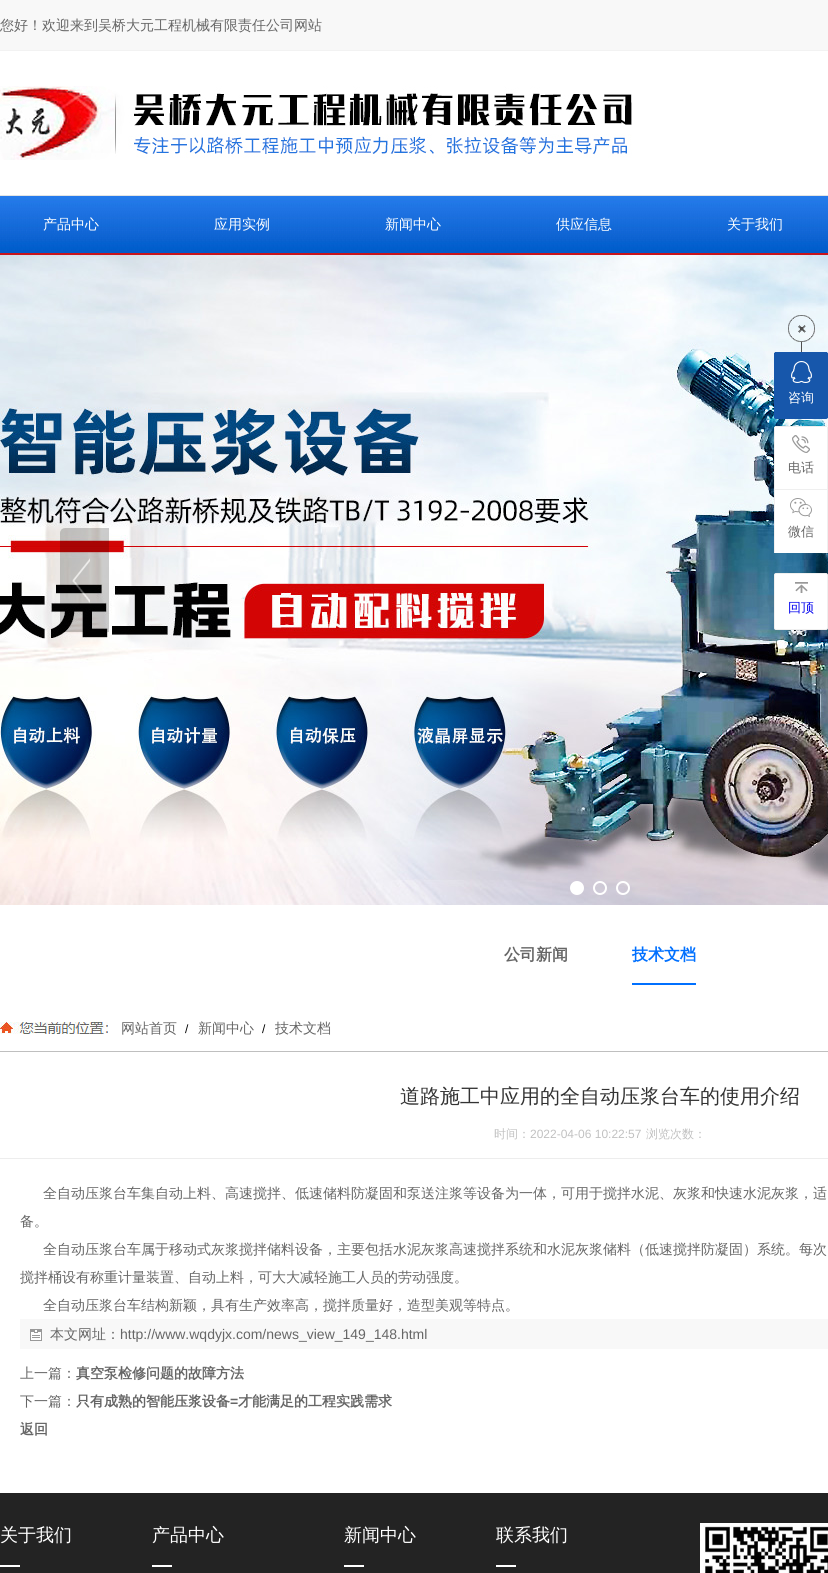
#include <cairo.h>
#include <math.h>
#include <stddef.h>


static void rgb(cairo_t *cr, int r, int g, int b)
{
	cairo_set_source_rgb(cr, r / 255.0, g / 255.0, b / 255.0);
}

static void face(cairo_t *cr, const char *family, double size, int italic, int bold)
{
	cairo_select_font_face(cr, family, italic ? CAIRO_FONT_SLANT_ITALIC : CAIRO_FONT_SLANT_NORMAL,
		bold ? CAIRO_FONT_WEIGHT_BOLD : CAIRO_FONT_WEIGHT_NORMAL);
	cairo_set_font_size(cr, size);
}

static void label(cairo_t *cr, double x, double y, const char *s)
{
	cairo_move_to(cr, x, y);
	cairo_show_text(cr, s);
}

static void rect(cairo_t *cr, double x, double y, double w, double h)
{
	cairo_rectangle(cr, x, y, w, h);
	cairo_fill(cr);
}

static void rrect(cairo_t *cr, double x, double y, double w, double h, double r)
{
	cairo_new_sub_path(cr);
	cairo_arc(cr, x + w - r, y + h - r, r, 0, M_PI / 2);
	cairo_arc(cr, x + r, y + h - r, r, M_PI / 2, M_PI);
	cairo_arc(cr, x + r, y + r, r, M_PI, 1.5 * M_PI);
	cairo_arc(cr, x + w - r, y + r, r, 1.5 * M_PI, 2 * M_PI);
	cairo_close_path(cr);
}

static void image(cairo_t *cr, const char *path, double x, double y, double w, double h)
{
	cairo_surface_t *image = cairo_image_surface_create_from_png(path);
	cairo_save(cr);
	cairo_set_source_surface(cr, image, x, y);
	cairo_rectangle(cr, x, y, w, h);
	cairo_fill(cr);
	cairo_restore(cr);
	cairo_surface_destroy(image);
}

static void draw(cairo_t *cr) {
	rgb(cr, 255, 255, 255);
	cairo_paint(cr);
	rgb(cr, 248, 248, 248);
	rect(cr, 0, 0, 828, 50);
	rgb(cr, 242, 242, 242);
	rect(cr, 0, 50, 828, 1);
	face(cr, "WenQuanYi Zen Hei Medium", 14, 0, 0);
	rgb(cr, 102, 102, 102);
	label(cr, 0, 30, "您好！欢迎来到吴桥大元工程机械有限责任公司网站");
	image(cr, "image0.png", 0, 86, 632, 74);
	image(cr, "image1.png", 0, 195, 828, 58);
	rgb(cr, 200, 20, 28);
	rect(cr, 0, 253, 828, 2);
	rgb(cr, 255, 255, 255);
	label(cr, 43, 229, "产品中心");
	label(cr, 214, 229, "应用实例");
	label(cr, 385, 229, "新闻中心");
	label(cr, 556, 229, "供应信息");
	label(cr, 727, 229, "关于我们");
	image(cr, "image2.png", 0, 255, 828, 650);
	image(cr, "image3.png", 60, 528, 49, 104);
	cairo_arc(cr, 577, 888, 6, 0, 2 * M_PI);
	cairo_fill_preserve(cr);
	cairo_stroke(cr);
	cairo_arc(cr, 600, 888, 6, 0, 2 * M_PI);
	cairo_stroke(cr);
	cairo_arc(cr, 623, 888, 6, 0, 2 * M_PI);
	cairo_stroke(cr);
	face(cr, "WenQuanYi Zen Hei", 16, 0, 1);
	rgb(cr, 102, 102, 102);
	label(cr, 504, 960, "公司新闻");
	rgb(cr, 0, 112, 255);
	label(cr, 632, 960, "技术文档");
	rect(cr, 632, 983, 64, 2);
	image(cr, "image4.png", 0, 1022, 108, 12);
	rgb(cr, 191, 191, 191);
	rect(cr, 0, 1051, 828, 1);
	face(cr, "WenQuanYi Zen Hei Medium", 14, 0, 0);
	rgb(cr, 102, 102, 102);
	label(cr, 121, 1033, "网站首页");
	face(cr, "Liberation Sans", 12, 0, 0);
	rgb(cr, 0, 0, 0);
	label(cr, 185, 1033, "/");
	face(cr, "WenQuanYi Zen Hei Medium", 14, 0, 0);
	rgb(cr, 102, 102, 102);
	label(cr, 198, 1033, "新闻中心");
	face(cr, "Liberation Sans", 12, 0, 0);
	rgb(cr, 0, 0, 0);
	label(cr, 262, 1033, "/");
	face(cr, "WenQuanYi Zen Hei Medium", 14, 0, 0);
	rgb(cr, 102, 102, 102);
	label(cr, 275, 1033, "技术文档");
	image(cr, "image5.png", 788, 315, 27, 27);
	rgb(cr, 79, 79, 79);
	rect(cr, 801, 342, 1, 12);
	rgb(cr, 23, 87, 171);
	rrect(cr, 774, 352, 54, 67, 2);
	cairo_fill(cr);
	rect(cr, 775, 352, 52, 1);
	rect(cr, 827, 353, 1, 65);
	rect(cr, 774, 353, 1, 65);
	image(cr, "image6.png", 791, 361, 21, 22);
	face(cr, "WenQuanYi Zen Hei Medium", 13, 0, 0);
	rgb(cr, 255, 255, 255);
	label(cr, 788, 402, "咨询");
	cairo_new_path(cr);
	cairo_move_to(cr, 776, 426);
	cairo_line_to(cr, 826, 426);
	cairo_curve_to(cr, 827, 426, 828, 427, 828, 428);
	cairo_line_to(cr, 828, 489);
	cairo_line_to(cr, 774, 489);
	cairo_line_to(cr, 774, 428);
	cairo_curve_to(cr, 774, 427, 775, 426, 776, 426);
	cairo_close_path(cr);
	cairo_fill(cr);
	rgb(cr, 239, 239, 239);
	rect(cr, 775, 426, 52, 1);
	rect(cr, 827, 427, 1, 62);
	rect(cr, 774, 427, 1, 62);
	image(cr, "image7.png", 792, 435, 18, 18);
	rgb(cr, 102, 102, 102);
	label(cr, 788, 472, "电话");
	rgb(cr, 255, 255, 255);
	rect(cr, 775, 490, 52, 63);
	rgb(cr, 239, 239, 239);
	rect(cr, 774, 489, 54, 1);
	rect(cr, 827, 489, 1, 64);
	rect(cr, 774, 489, 1, 64);
	image(cr, "image8.png", 790, 498, 22, 19);
	rgb(cr, 102, 102, 102);
	label(cr, 788, 536, "微信");
	rgb(cr, 255, 255, 255);
	rrect(cr, 774.5, 573.5, 53, 56, 1.5);
	cairo_fill_preserve(cr);
	rgb(cr, 239, 239, 239);
	cairo_set_line_width(cr, 1);
	cairo_stroke(cr);
	image(cr, "image9.png", 795, 582, 13, 11);
	rgb(cr, 0, 0, 238);
	label(cr, 788, 612, "回顶");
	rgb(cr, 35, 35, 35);
	rect(cr, 0, 1493, 828, 80);
	face(cr, "WenQuanYi Zen Hei Medium", 18, 0, 0);
	rgb(cr, 255, 255, 255);
	label(cr, 0, 1541, "关于我们");
	rect(cr, 0, 1565, 20, 2);
	label(cr, 152, 1541, "产品中心");
	rect(cr, 152, 1565, 20, 2);
	label(cr, 344, 1541, "新闻中心");
	rect(cr, 344, 1565, 20, 2);
	label(cr, 496, 1541, "联系我们");
	rect(cr, 496, 1565, 20, 2);
	image(cr, "image10.png", 700, 1523, 128, 50);
	rgb(cr, 237, 237, 237);
	rect(cr, 0, 1158, 828, 1);
	face(cr, "WenQuanYi Zen Hei Medium", 20, 0, 0);
	rgb(cr, 51, 51, 51);
	label(cr, 400, 1103, "道路施工中应用的全自动压浆台车的使用介绍");
	face(cr, "WenQuanYi Zen Hei Medium", 12, 0, 0);
	rgb(cr, 193, 193, 193);
	label(cr, 494, 1138, "时间：");
	face(cr, "Liberation Sans", 12, 0, 0);
	label(cr, 530, 1138, "2022-04-06 10:22:57");
	face(cr, "WenQuanYi Zen Hei Medium", 12, 0, 0);
	label(cr, 646, 1138, "浏览次数：");
	face(cr, "WenQuanYi Zen Hei Medium", 14, 0, 0);
	rgb(cr, 102, 102, 102);
	label(cr, 43, 1198, "全自动压浆台车集自动上料、高速搅拌、低速储料防凝固和泵送注浆等设备为一体，可用于搅拌水泥、灰浆和快速水泥灰浆，适");
	label(cr, 20, 1226, "备。");
	label(cr, 43, 1254, "全自动压浆台车属于移动式灰浆搅拌储料设备，主要包括水泥灰浆高速搅拌系统和水泥灰浆储料（低速搅拌防凝固）系统。每次");
	label(cr, 20, 1282, "搅拌桶设有称重计量装置、自动上料，可大大减轻施工人员的劳动强度。");
	label(cr, 43, 1310, "全自动压浆台车结构新颖，具有生产效率高，搅拌质量好，造型美观等特点。");
	rgb(cr, 248, 248, 248);
	rect(cr, 20, 1319, 808, 30);
	image(cr, "image11.png", 30, 1329, 12, 12);
	rgb(cr, 102, 102, 102);
	label(cr, 50, 1339, "本文网址：");
	face(cr, "Liberation Sans", 14, 0, 0);
	label(cr, 120, 1339, "http://www.wqdyjx.com/news_view_149_148.html");
	face(cr, "WenQuanYi Zen Hei Medium", 14, 0, 0);
	label(cr, 20, 1378, "上一篇：");
	face(cr, "WenQuanYi Zen Hei", 14, 0, 1);
	label(cr, 76, 1378, "真空泵检修问题的故障方法");
	face(cr, "WenQuanYi Zen Hei Medium", 14, 0, 0);
	label(cr, 20, 1406, "下一篇：");
	face(cr, "WenQuanYi Zen Hei", 14, 0, 1);
	label(cr, 76, 1406, "只有成熟的智能压浆设备");
	face(cr, "Liberation Sans", 14, 0, 1);
	label(cr, 230, 1406, "=");
	face(cr, "WenQuanYi Zen Hei", 14, 0, 1);
	label(cr, 238, 1406, "才能满足的工程实践需求");
	label(cr, 20, 1434, "返回");
}

int main(void) {
	cairo_surface_t *surface = cairo_image_surface_create(CAIRO_FORMAT_RGB24, 828, 1573);
	cairo_t *cr = cairo_create(surface);
	cairo_font_options_t *options = cairo_font_options_create();
	cairo_font_options_set_hint_metrics(options, CAIRO_HINT_METRICS_OFF);
	cairo_font_options_set_hint_style(options, CAIRO_HINT_STYLE_NONE);
	cairo_set_font_options(cr, options);
	cairo_set_miter_limit(cr, 4);
	draw(cr);
	cairo_surface_write_to_png(surface, "render.png");
	cairo_font_options_destroy(options);
	cairo_destroy(cr);
	cairo_surface_destroy(surface);
	return 0;
}
